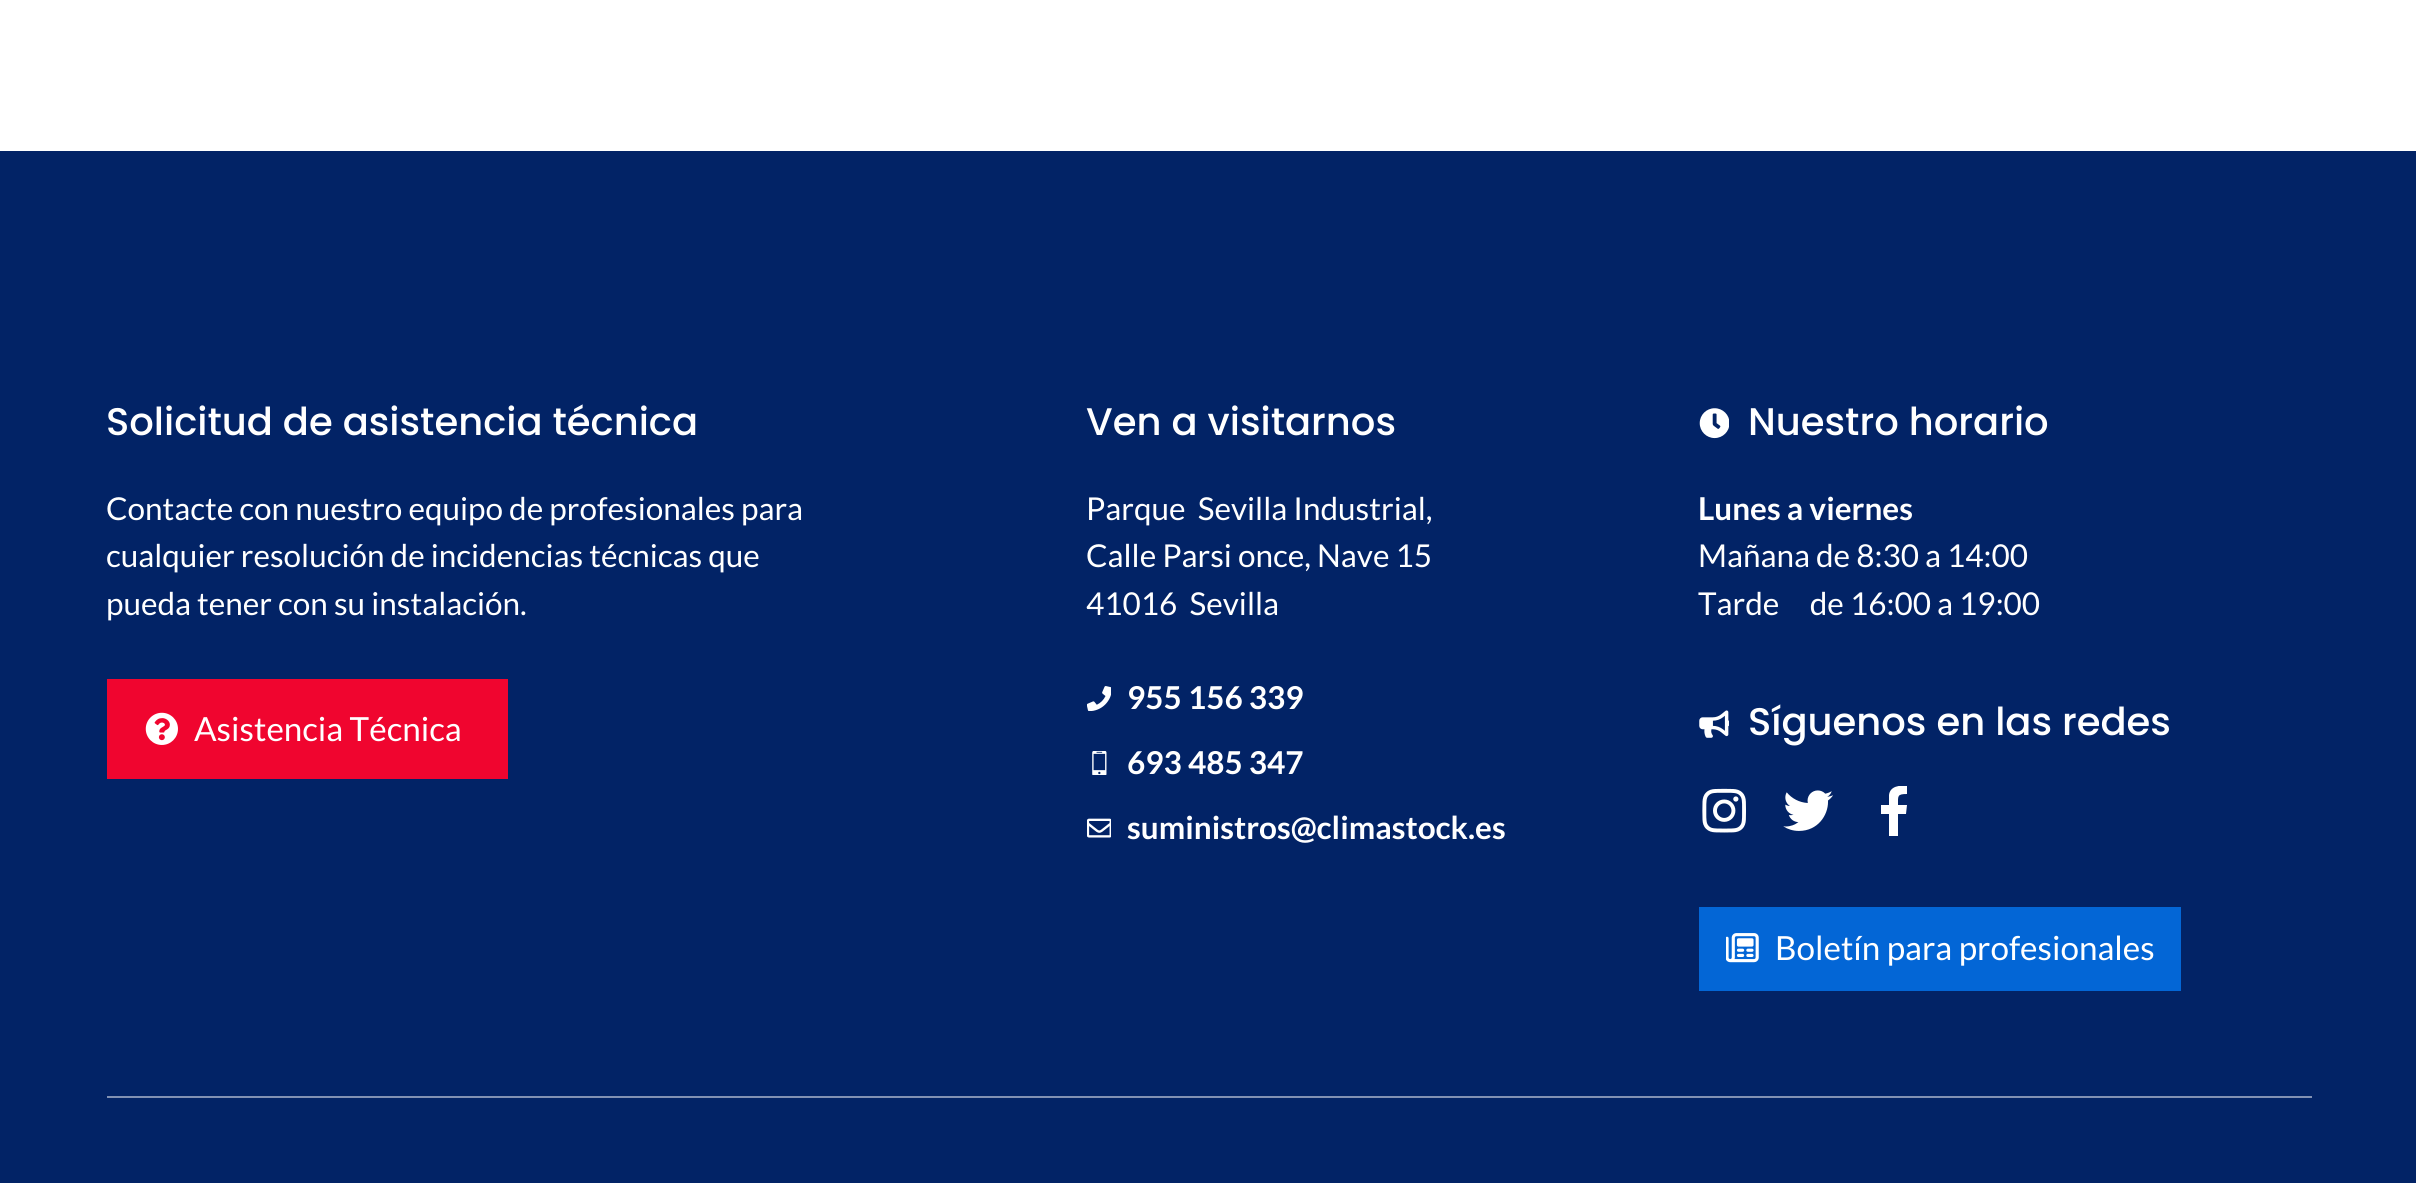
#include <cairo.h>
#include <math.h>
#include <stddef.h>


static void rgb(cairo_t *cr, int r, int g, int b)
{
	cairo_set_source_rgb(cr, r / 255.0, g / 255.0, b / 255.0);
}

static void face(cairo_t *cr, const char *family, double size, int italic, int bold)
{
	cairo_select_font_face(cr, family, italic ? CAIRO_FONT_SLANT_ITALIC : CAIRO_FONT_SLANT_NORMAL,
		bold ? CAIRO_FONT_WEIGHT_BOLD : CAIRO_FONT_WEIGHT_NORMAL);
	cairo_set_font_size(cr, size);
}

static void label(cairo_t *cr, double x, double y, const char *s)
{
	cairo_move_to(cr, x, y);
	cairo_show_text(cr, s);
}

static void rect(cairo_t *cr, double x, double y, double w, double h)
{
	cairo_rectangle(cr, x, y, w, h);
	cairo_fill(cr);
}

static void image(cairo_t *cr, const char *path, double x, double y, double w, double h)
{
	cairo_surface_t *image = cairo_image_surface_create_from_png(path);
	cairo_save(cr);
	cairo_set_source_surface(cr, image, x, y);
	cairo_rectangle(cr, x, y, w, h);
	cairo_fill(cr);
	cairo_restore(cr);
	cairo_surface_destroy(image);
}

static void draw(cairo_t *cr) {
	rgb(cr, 255, 255, 255);
	cairo_paint(cr);
	rgb(cr, 2, 35, 102);
	rect(cr, 0, 151, 2416, 1032);
	face(cr, "Poppins Medium", 38.5, 0, 0);
	rgb(cr, 255, 255, 255);
	label(cr, 106, 435, "Solicitud de asistencia técnica");
	face(cr, "Lato", 31.5, 0, 0);
	label(cr, 106, 520, "Contacte con nuestro equipo de profesionales para");
	label(cr, 106, 567, "cualquier resolución de incidencias técnicas que");
	label(cr, 106, 615, "pueda tener con su instalación.");
	rgb(cr, 240, 5, 47);
	rect(cr, 107, 679, 401, 100);
	image(cr, "image0.png", 145, 712, 33, 33);
	face(cr, "Lato", 33.25, 0, 0);
	rgb(cr, 255, 255, 255);
	label(cr, 194, 741, "Asistencia Técnica");
	face(cr, "Poppins Medium", 38.5, 0, 0);
	label(cr, 1086, 435, "Ven a visitarnos");
	face(cr, "Lato", 31.5, 0, 0);
	label(cr, 1086, 520, "Parque  Sevilla Industrial,");
	label(cr, 1086, 567, "Calle Parsi once, Nave 15");
	label(cr, 1086, 615, "41016  Sevilla");
	image(cr, "image1.png", 1087, 686, 24, 25);
	face(cr, "Lato", 31.5, 0, 1);
	label(cr, 1127, 709, "955 156 339");
	image(cr, "image2.png", 1092, 751, 15, 24);
	label(cr, 1127, 774, "693 485 347");
	image(cr, "image3.png", 1087, 818, 24, 20);
	label(cr, 1127, 839, "suministros@climastock.es");
	image(cr, "image4.png", 1699, 408, 30, 31);
	face(cr, "Poppins Medium", 38.5, 0, 0);
	label(cr, 1748, 435, "Nuestro horario");
	face(cr, "Lato", 31.5, 0, 1);
	label(cr, 1698, 520, "Lunes a viernes");
	face(cr, "Lato", 31.5, 0, 0);
	label(cr, 1698, 567, "Mañana de 8:30 a 14:00");
	label(cr, 1698, 615, "Tarde     de 16:00 a 19:00");
	image(cr, "image5.png", 1699, 710, 30, 28);
	face(cr, "Poppins Medium", 38.5, 0, 0);
	label(cr, 1748, 735, "Síguenos en las redes");
	image(cr, "image6.png", 1702, 788, 44, 45);
	image(cr, "image7.png", 1783, 790, 50, 41);
	cairo_save(cr);
	cairo_rectangle(cr, 1869, 786, 49, 51);
	cairo_clip(cr);
	cairo_new_path(cr);
	cairo_move_to(cr, 1906, 814);
	cairo_line_to(cr, 1907, 805);
	cairo_line_to(cr, 1898, 805);
	cairo_curve_to(cr, 1898, 796, 1897, 794, 1907, 794);
	cairo_line_to(cr, 1907, 786);
	cairo_curve_to(cr, 1900, 785, 1890, 786, 1889, 795);
	cairo_line_to(cr, 1889, 805);
	cairo_line_to(cr, 1881, 805);
	cairo_line_to(cr, 1881, 814);
	cairo_line_to(cr, 1889, 814);
	cairo_line_to(cr, 1889, 836);
	cairo_line_to(cr, 1898, 836);
	cairo_line_to(cr, 1898, 814);
	cairo_close_path(cr);
	cairo_fill(cr);
	cairo_restore(cr);
	rgb(cr, 3, 102, 214);
	rect(cr, 1699, 907, 482, 84);
	image(cr, "image8.png", 1726, 933, 33, 30);
	face(cr, "Lato", 33.25, 0, 0);
	rgb(cr, 255, 255, 255);
	label(cr, 1775, 960, "Boletín para profesionales");
	rgb(cr, 129, 145, 179);
	rect(cr, 107, 1096, 2205, 2);
}

int main(void) {
	cairo_surface_t *surface = cairo_image_surface_create(CAIRO_FORMAT_RGB24, 2416, 1183);
	cairo_t *cr = cairo_create(surface);
	cairo_font_options_t *options = cairo_font_options_create();
	cairo_font_options_set_hint_metrics(options, CAIRO_HINT_METRICS_OFF);
	cairo_font_options_set_hint_style(options, CAIRO_HINT_STYLE_NONE);
	cairo_set_font_options(cr, options);
	cairo_set_miter_limit(cr, 4);
	draw(cr);
	cairo_surface_write_to_png(surface, "render.png");
	cairo_font_options_destroy(options);
	cairo_destroy(cr);
	cairo_surface_destroy(surface);
	return 0;
}
